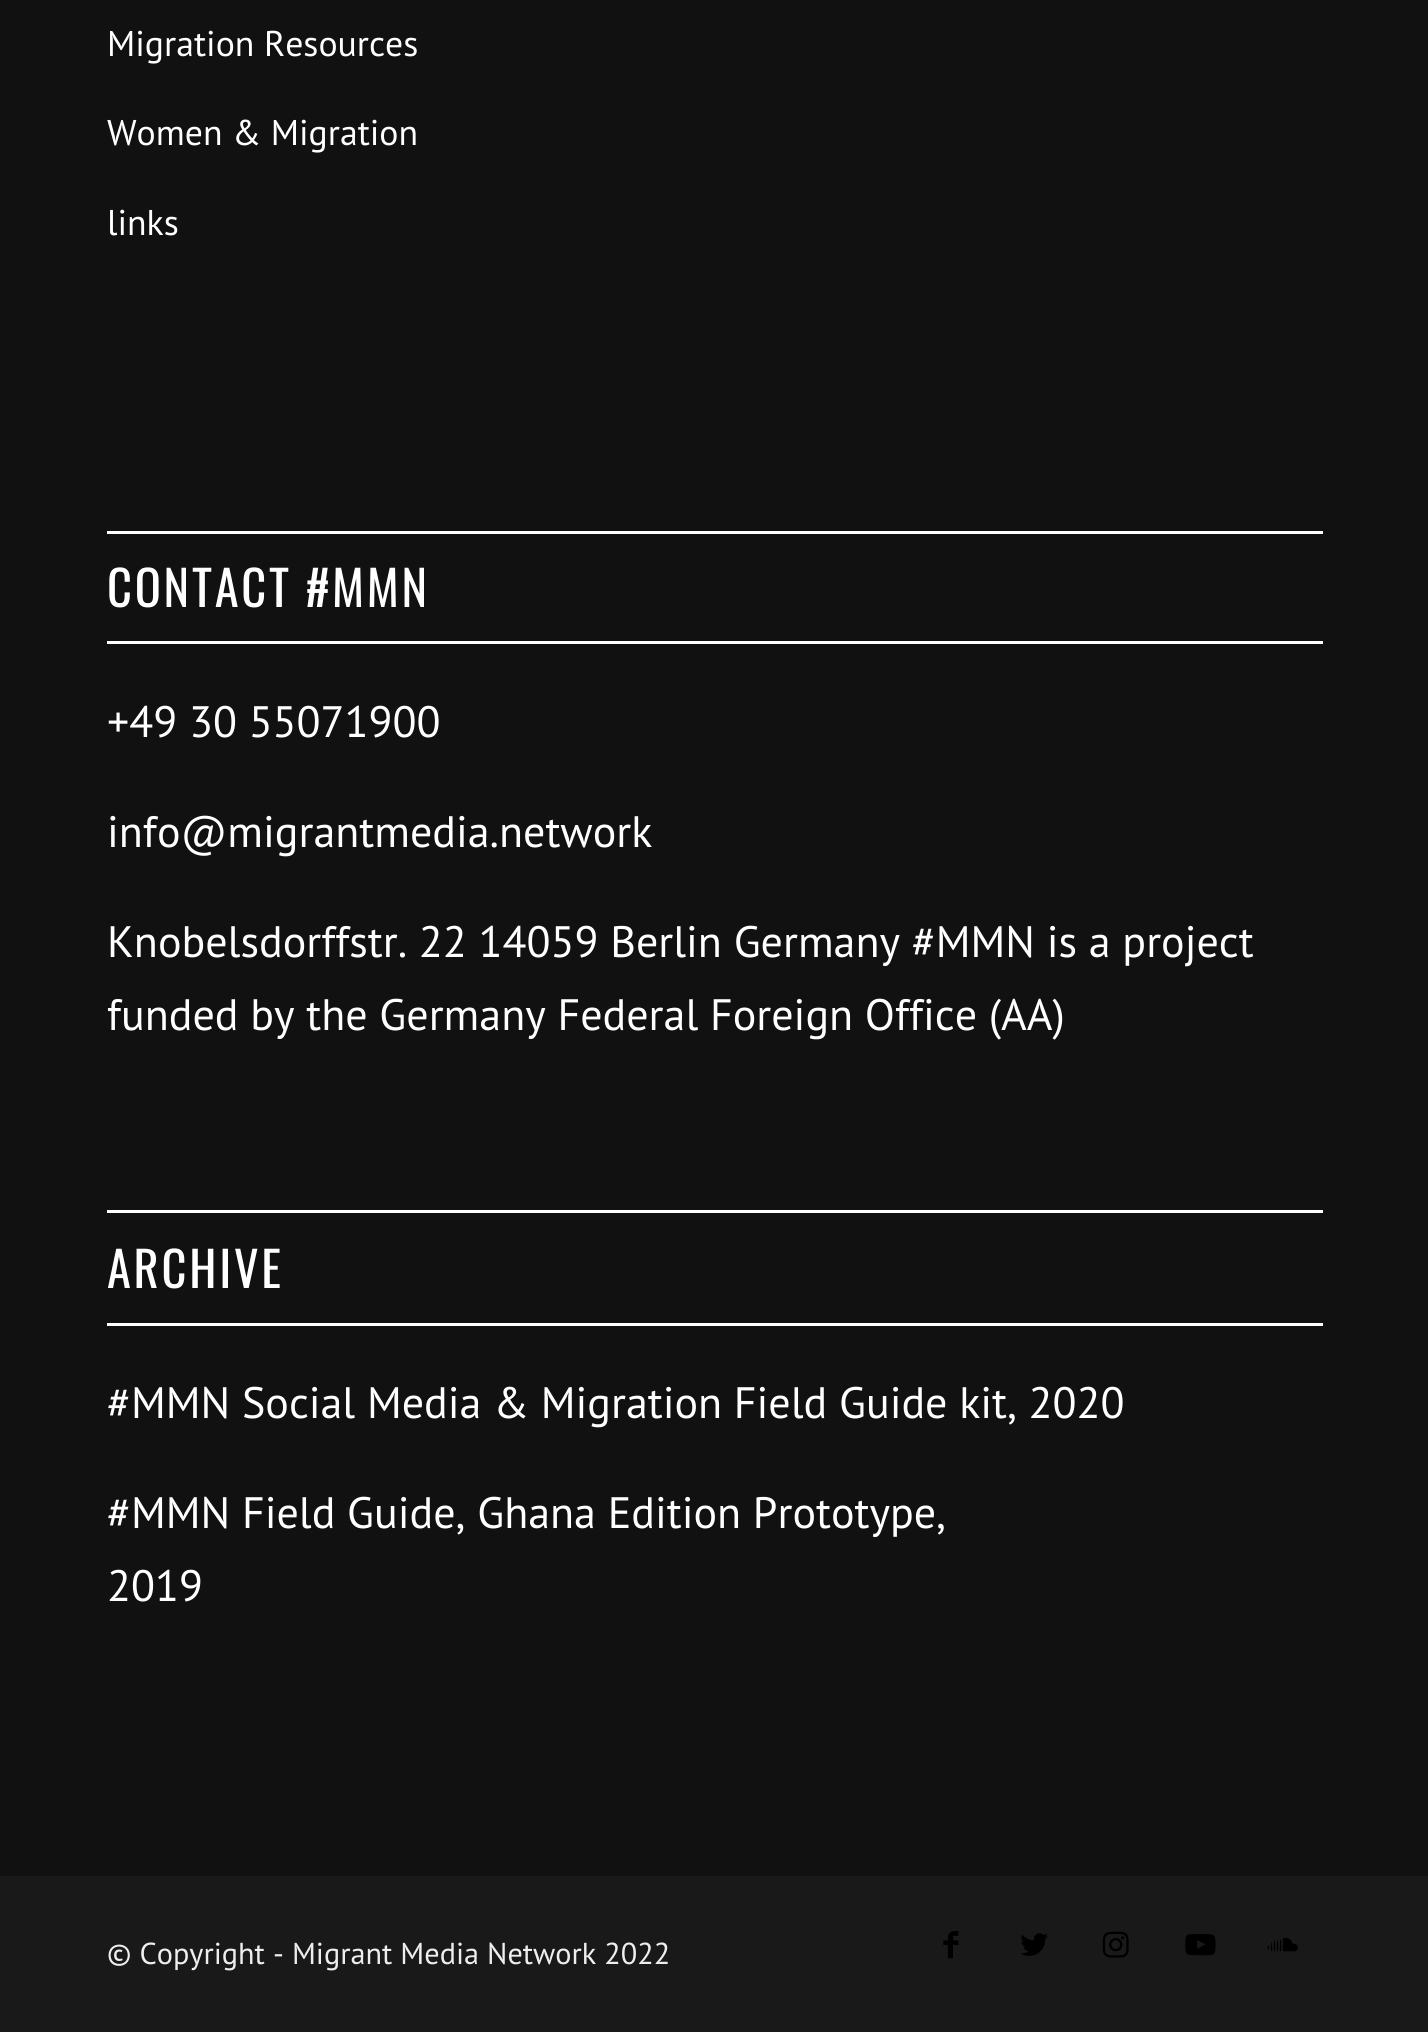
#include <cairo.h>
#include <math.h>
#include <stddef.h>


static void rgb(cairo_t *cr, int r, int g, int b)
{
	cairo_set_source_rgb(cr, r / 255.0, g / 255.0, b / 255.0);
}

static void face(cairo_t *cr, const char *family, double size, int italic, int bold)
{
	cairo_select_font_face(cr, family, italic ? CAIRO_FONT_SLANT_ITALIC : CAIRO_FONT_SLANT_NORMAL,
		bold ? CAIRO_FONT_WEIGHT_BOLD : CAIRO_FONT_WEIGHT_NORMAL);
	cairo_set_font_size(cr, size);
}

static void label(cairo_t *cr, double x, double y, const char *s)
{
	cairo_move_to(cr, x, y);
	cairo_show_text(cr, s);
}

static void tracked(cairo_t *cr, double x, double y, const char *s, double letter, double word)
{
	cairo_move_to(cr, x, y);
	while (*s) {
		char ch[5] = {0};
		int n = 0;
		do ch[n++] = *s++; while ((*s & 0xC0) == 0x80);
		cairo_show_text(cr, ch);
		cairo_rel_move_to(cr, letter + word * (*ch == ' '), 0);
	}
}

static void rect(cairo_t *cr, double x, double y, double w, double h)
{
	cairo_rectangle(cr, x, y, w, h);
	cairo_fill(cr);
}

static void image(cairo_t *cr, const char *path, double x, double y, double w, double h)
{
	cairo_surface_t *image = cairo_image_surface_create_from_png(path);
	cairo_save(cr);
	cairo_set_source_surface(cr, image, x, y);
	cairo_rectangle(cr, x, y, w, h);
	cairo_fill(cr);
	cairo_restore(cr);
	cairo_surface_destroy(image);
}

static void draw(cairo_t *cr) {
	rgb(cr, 17, 17, 17);
	cairo_paint(cr);
	face(cr, "PT Sans", 35.75, 0, 0);
	rgb(cr, 255, 255, 255);
	label(cr, 107, 56, "Migration Resources");
	label(cr, 107, 145, "Women & Migration");
	label(cr, 107, 235, "links");
	rect(cr, 107, 531, 1216, 3);
	rect(cr, 107, 641, 1216, 3);
	face(cr, "Oswald", 48.5, 0, 0);
	tracked(cr, 107, 607, "CONTACT #MMN", 2.75, 0);
	face(cr, "PT Sans", 44, 0, 0);
	label(cr, 107, 737, "+49 30 55071900");
	label(cr, 107, 847, "info@migrantmedia.network");
	label(cr, 107, 957, "Knobelsdorffstr. 22 14059 Berlin Germany #MMN is a project");
	label(cr, 107, 1030, "funded by the Germany Federal Foreign Office (AA)");
	rect(cr, 107, 1210, 1216, 3);
	rect(cr, 107, 1323, 1216, 3);
	face(cr, "Oswald", 48.5, 0, 0);
	tracked(cr, 107, 1288, "ARCHIVE", 2.75, 0);
	face(cr, "PT Sans", 44, 0, 0);
	label(cr, 107, 1418, "#MMN Social Media & Migration Field Guide kit, 2020");
	label(cr, 107, 1528, "#MMN Field Guide, Ghana Edition Prototype,");
	label(cr, 107, 1601, "2019");
	rgb(cr, 25, 25, 25);
	rect(cr, 0, 1876, 1428, 156);
	face(cr, "PT Sans", 30.25, 0, 0);
	rgb(cr, 238, 238, 238);
	label(cr, 107, 1964, "© Copyright - Migrant Media Network 2022");
	image(cr, "image0.png", 943, 1931, 16, 28);
	image(cr, "image1.png", 1021, 1933, 27, 23);
	image(cr, "image2.png", 1102, 1931, 27, 27);
	image(cr, "image3.png", 1185, 1934, 31, 22);
	image(cr, "image4.png", 1267, 1938, 31, 14);
}

int main(void) {
	cairo_surface_t *surface = cairo_image_surface_create(CAIRO_FORMAT_RGB24, 1428, 2032);
	cairo_t *cr = cairo_create(surface);
	cairo_font_options_t *options = cairo_font_options_create();
	cairo_font_options_set_hint_metrics(options, CAIRO_HINT_METRICS_OFF);
	cairo_font_options_set_hint_style(options, CAIRO_HINT_STYLE_NONE);
	cairo_set_font_options(cr, options);
	cairo_set_miter_limit(cr, 4);
	draw(cr);
	cairo_surface_write_to_png(surface, "render.png");
	cairo_font_options_destroy(options);
	cairo_destroy(cr);
	cairo_surface_destroy(surface);
	return 0;
}
